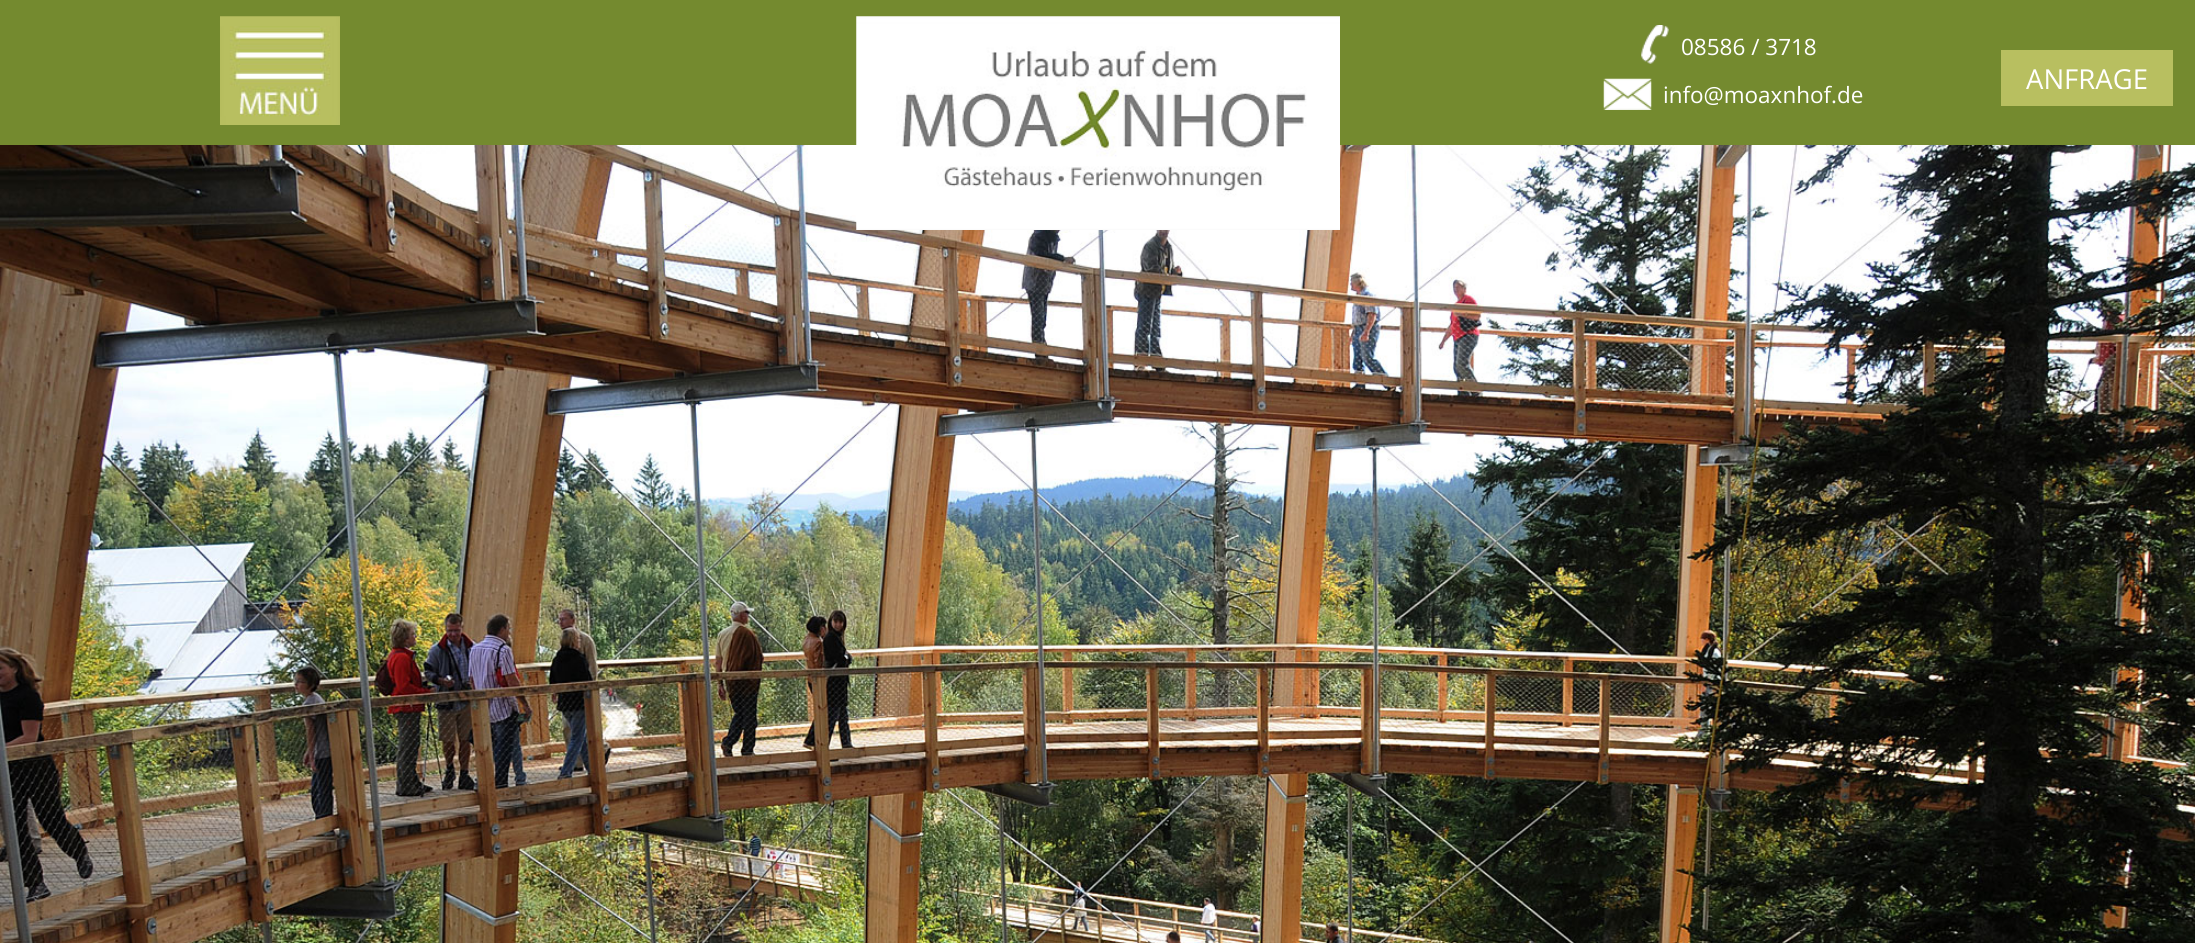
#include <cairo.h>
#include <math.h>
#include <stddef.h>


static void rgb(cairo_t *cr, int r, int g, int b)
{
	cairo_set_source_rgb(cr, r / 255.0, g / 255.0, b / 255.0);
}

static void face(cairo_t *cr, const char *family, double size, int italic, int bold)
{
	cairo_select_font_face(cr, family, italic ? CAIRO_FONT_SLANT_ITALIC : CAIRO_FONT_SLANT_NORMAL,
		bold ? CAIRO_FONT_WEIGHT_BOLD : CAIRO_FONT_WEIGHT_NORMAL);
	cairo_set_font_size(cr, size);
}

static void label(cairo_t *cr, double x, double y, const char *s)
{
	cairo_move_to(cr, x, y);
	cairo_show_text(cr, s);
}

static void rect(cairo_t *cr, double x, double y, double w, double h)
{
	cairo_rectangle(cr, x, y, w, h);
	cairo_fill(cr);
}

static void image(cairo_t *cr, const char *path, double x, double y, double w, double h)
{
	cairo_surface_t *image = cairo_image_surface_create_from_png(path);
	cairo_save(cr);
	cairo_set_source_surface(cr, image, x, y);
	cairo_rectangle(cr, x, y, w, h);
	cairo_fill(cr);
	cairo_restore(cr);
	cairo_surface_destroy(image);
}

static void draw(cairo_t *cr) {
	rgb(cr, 116, 138, 47);
	cairo_paint(cr);
	image(cr, "image0.png", 220, 16, 120, 109);
	image(cr, "image4.png", 0, 145, 2195, 798);
	image(cr, "image1.png", 856, 16, 484, 214);
	image(cr, "image2.png", 1641, 25, 28, 39);
	face(cr, "Open Sans", 22.5, 0, 0);
	rgb(cr, 255, 255, 255);
	label(cr, 1681, 55, "08586 / 3718");
	image(cr, "image3.png", 1603, 78, 49, 32);
	label(cr, 1663, 103, "info@moaxnhof.de");
	rgb(cr, 184, 191, 96);
	rect(cr, 2001, 50, 172, 56);
	face(cr, "Open Sans", 27.5, 0, 0);
	rgb(cr, 255, 255, 255);
	label(cr, 2026, 89, "ANFRAGE");
}

int main(void) {
	cairo_surface_t *surface = cairo_image_surface_create(CAIRO_FORMAT_RGB24, 2195, 943);
	cairo_t *cr = cairo_create(surface);
	cairo_font_options_t *options = cairo_font_options_create();
	cairo_font_options_set_hint_metrics(options, CAIRO_HINT_METRICS_OFF);
	cairo_font_options_set_hint_style(options, CAIRO_HINT_STYLE_NONE);
	cairo_set_font_options(cr, options);
	cairo_set_miter_limit(cr, 4);
	draw(cr);
	cairo_surface_write_to_png(surface, "render.png");
	cairo_font_options_destroy(options);
	cairo_destroy(cr);
	cairo_surface_destroy(surface);
	return 0;
}
